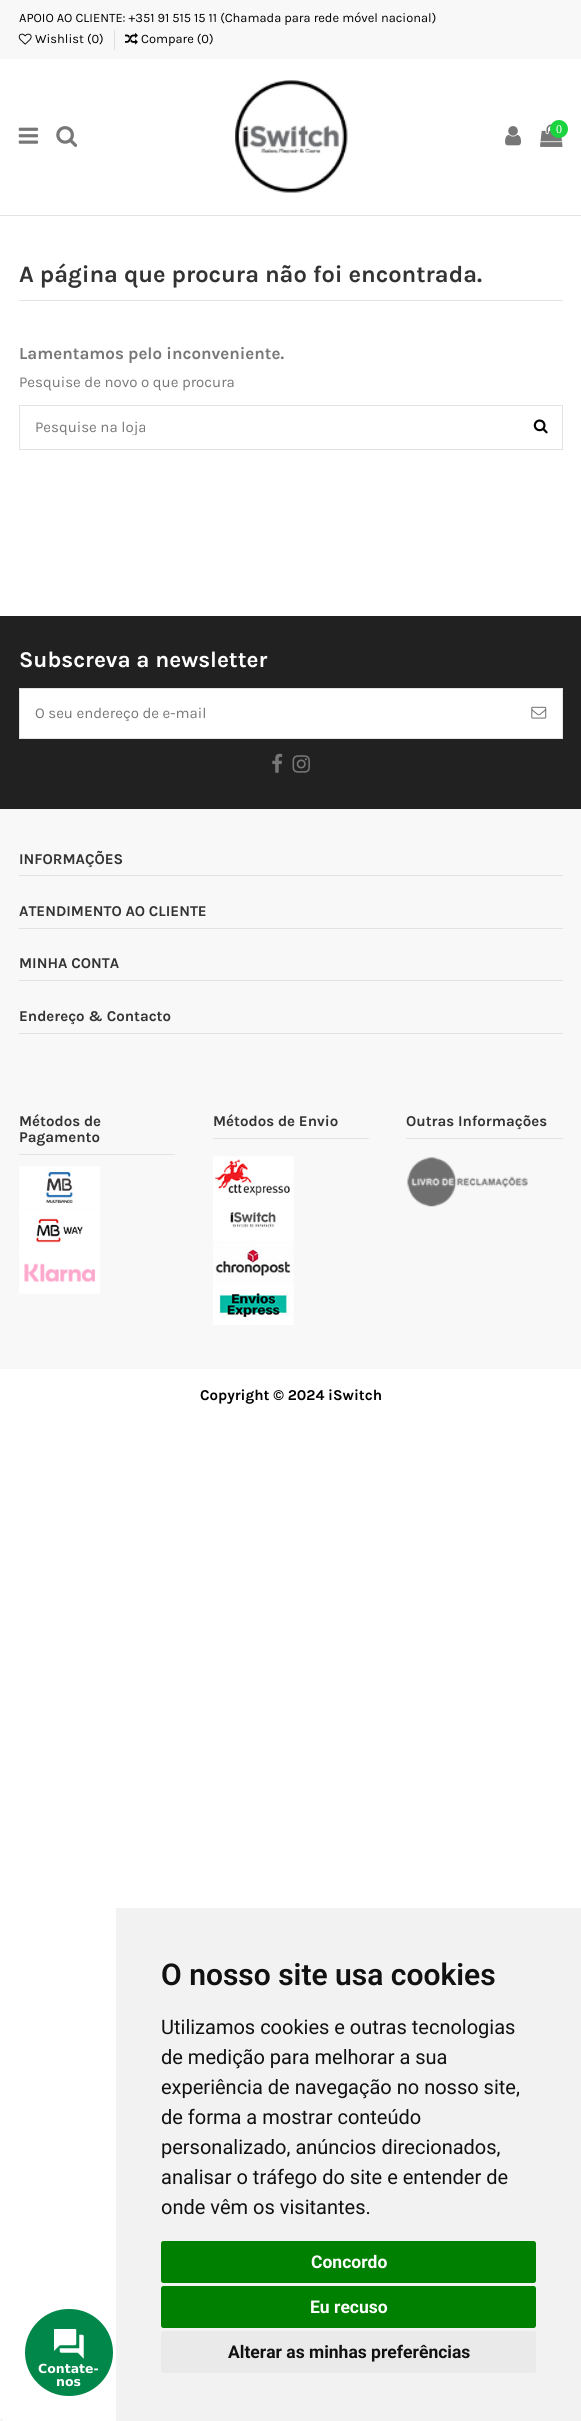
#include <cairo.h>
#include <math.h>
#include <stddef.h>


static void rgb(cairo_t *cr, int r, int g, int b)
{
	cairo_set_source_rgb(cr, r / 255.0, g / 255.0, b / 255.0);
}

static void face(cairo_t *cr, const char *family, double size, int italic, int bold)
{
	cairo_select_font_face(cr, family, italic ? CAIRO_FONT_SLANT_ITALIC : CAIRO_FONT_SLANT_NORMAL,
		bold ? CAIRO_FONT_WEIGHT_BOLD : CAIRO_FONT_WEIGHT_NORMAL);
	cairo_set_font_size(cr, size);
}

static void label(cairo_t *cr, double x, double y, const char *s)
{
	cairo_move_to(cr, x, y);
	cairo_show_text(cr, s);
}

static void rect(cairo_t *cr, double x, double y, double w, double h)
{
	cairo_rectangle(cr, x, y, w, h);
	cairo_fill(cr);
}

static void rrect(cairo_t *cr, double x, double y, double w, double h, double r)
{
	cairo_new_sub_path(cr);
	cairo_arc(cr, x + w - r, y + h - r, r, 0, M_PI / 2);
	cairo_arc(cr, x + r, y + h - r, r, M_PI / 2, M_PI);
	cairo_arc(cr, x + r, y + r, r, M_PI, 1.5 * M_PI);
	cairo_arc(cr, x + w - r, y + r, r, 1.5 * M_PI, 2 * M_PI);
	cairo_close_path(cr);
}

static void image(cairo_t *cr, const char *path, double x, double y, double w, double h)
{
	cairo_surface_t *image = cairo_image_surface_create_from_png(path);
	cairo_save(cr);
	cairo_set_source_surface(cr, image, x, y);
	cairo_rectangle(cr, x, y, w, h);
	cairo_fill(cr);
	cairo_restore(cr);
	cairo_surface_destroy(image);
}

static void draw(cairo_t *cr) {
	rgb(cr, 255, 255, 255);
	cairo_paint(cr);
	rgb(cr, 248, 248, 248);
	rect(cr, 0, 0, 581, 59);
	face(cr, "Karla", 12.85, 0, 0);
	rgb(cr, 0, 0, 0);
	label(cr, 19, 22, "APOIO AO CLIENTE: +351 91 515 15 11 (Chamada para rede móvel nacional)");
	image(cr, "image0.png", 18, 33, 14, 12);
	label(cr, 35, 43, "Wishlist (0)");
	rgb(cr, 222, 222, 222);
	rect(cr, 114, 30, 1, 20);
	image(cr, "image1.png", 125, 33, 13, 12);
	rgb(cr, 0, 0, 0);
	label(cr, 141, 43, "Compare (0)");
	rgb(cr, 227, 227, 227);
	rect(cr, 0, 215, 581, 1);
	image(cr, "image2.png", 18, 127, 21, 17);
	image(cr, "image3.png", 56, 126, 22, 21);
	image(cr, "image4.png", 235, 80, 113, 113);
	image(cr, "image5.png", 505, 126, 17, 20);
	image(cr, "image6.png", 540, 124, 23, 23);
	rgb(cr, 27, 211, 63);
	cairo_arc(cr, 559, 129, 9, 0, 2 * M_PI);
	cairo_fill(cr);
	face(cr, "Liberation Serif", 12, 0, 0);
	rgb(cr, 255, 255, 255);
	label(cr, 556, 133, "0");
	rgb(cr, 227, 227, 227);
	rect(cr, 19, 300, 544, 1);
	face(cr, "Karla", 23.6, 0, 1);
	rgb(cr, 51, 51, 51);
	label(cr, 19, 282, "A página que procura não foi encontrada.");
	face(cr, "Karla", 16.9, 0, 1);
	rgb(cr, 119, 119, 119);
	label(cr, 19, 359, "Lamentamos pelo inconveniente.");
	face(cr, "Karla", 15, 0, 0);
	label(cr, 19, 387, "Pesquise de novo o que procura");
	cairo_rectangle(cr, 19.5, 405.5, 543, 44);
	rgb(cr, 227, 227, 227);
	cairo_set_line_width(cr, 1);
	cairo_stroke(cr);
	cairo_save(cr);
	cairo_rectangle(cr, 35, 418, 496, 17);
	cairo_clip(cr);
	rgb(cr, 119, 119, 119);
	label(cr, 35, 432, "Pesquise na loja");
	cairo_restore(cr);
	image(cr, "image7.png", 533, 419, 15, 15);
	rgb(cr, 248, 248, 248);
	rect(cr, 0, 809, 581, 560);
	rgb(cr, 33, 33, 33);
	rect(cr, 0, 616, 581, 193);
	face(cr, "Karla", 22.5, 0, 1);
	rgb(cr, 255, 255, 255);
	label(cr, 19, 667, "Subscreva a newsletter");
	cairo_rectangle(cr, 19.5, 688.5, 543, 50);
	cairo_fill_preserve(cr);
	rgb(cr, 227, 227, 227);
	cairo_stroke(cr);
	face(cr, "Karla", 15, 0, 0);
	rgb(cr, 119, 119, 119);
	label(cr, 35, 718, "O seu endereço de e-mail");
	image(cr, "image8.png", 531, 706, 16, 13);
	image(cr, "image9.png", 272, 753, 11, 20);
	image(cr, "image10.png", 292, 755, 18, 18);
	rgb(cr, 227, 227, 227);
	rect(cr, 19, 875, 544, 1);
	face(cr, "Karla", 15, 0, 1);
	rgb(cr, 51, 51, 51);
	label(cr, 19, 864, "INFORMAÇÕES");
	rgb(cr, 227, 227, 227);
	rect(cr, 19, 928, 544, 1);
	rgb(cr, 51, 51, 51);
	label(cr, 19, 916, "ATENDIMENTO AO CLIENTE");
	rgb(cr, 227, 227, 227);
	rect(cr, 19, 980, 544, 1);
	rgb(cr, 51, 51, 51);
	label(cr, 19, 968, "MINHA CONTA");
	rgb(cr, 227, 227, 227);
	rect(cr, 19, 1033, 544, 1);
	rgb(cr, 51, 51, 51);
	label(cr, 19, 1021, "Endereço & Contacto");
	rgb(cr, 0, 135, 73);
	rrect(cr, 25, 2309, 88, 87, 43.5);
	cairo_fill(cr);
	image(cr, "image11.png", 54, 2329, 30, 30);
	face(cr, "DejaVu Sans", 12.5, 0, 1);
	rgb(cr, 255, 255, 255);
	label(cr, 38, 2373, "Contate-");
	label(cr, 56, 2386, "nos");
	rgb(cr, 227, 227, 227);
	rect(cr, 19, 1154, 156, 1);
	face(cr, "Karla", 15, 0, 1);
	rgb(cr, 51, 51, 51);
	label(cr, 19, 1126, "Métodos de");
	label(cr, 19, 1142, "Pagamento");
	image(cr, "image12.png", 19, 1166, 81, 43);
	image(cr, "image13.png", 19, 1209, 81, 42);
	image(cr, "image14.png", 19, 1251, 81, 43);
	rgb(cr, 227, 227, 227);
	rect(cr, 213, 1138, 156, 1);
	rgb(cr, 51, 51, 51);
	label(cr, 213, 1126, "Métodos de Envio");
	image(cr, "image15.png", 213, 1156, 81, 43);
	image(cr, "image16.png", 213, 1199, 81, 42);
	image(cr, "image17.png", 213, 1241, 81, 43);
	image(cr, "image18.png", 213, 1284, 81, 41);
	rgb(cr, 227, 227, 227);
	rect(cr, 406, 1138, 157, 1);
	rgb(cr, 51, 51, 51);
	label(cr, 406, 1126, "Outras Informações");
	image(cr, "image19.png", 407, 1157, 121, 50);
	rgb(cr, 0, 0, 0);
	label(cr, 200, 1400, "Copyright © 2024 iSwitch");
	rgb(cr, 242, 242, 242);
	rect(cr, 116, 1908, 465, 513);
	face(cr, "Roboto SemiBold", 30, 0, 0);
	rgb(cr, 17, 17, 17);
	label(cr, 161, 1985, "O nosso site usa cookies");
	face(cr, "Roboto", 20, 0, 0);
	label(cr, 161, 2034, "Utilizamos cookies e outras tecnologias");
	label(cr, 161, 2064, "de medição para melhorar a sua");
	label(cr, 161, 2094, "experiência de navegação no nosso site,");
	label(cr, 161, 2124, "de forma a mostrar conteúdo");
	label(cr, 161, 2154, "personalizado, anúncios direcionados,");
	label(cr, 161, 2184, "analisar o tráfego do site e entender de");
	label(cr, 161, 2214, "onde vêm os visitantes.");
	rgb(cr, 0, 128, 0);
	rrect(cr, 161, 2241, 375, 42, 2.5);
	cairo_fill(cr);
	face(cr, "Roboto", 17.5, 0, 1);
	rgb(cr, 255, 255, 255);
	label(cr, 311, 2268, "Concordo");
	rgb(cr, 0, 128, 0);
	rrect(cr, 161, 2286, 375, 42, 2.5);
	cairo_fill(cr);
	rgb(cr, 255, 255, 255);
	label(cr, 310, 2313, "Eu recuso");
	rgb(cr, 234, 234, 234);
	rrect(cr, 161, 2331, 375, 42, 2.5);
	cairo_fill(cr);
	rgb(cr, 17, 17, 17);
	label(cr, 228, 2358, "Alterar as minhas preferências");
	rgb(cr, 245, 245, 245);
	rect(cr, 0, 2419, 3, 2);
}

int main(void) {
	cairo_surface_t *surface = cairo_image_surface_create(CAIRO_FORMAT_RGB24, 581, 2421);
	cairo_t *cr = cairo_create(surface);
	cairo_font_options_t *options = cairo_font_options_create();
	cairo_font_options_set_hint_metrics(options, CAIRO_HINT_METRICS_OFF);
	cairo_font_options_set_hint_style(options, CAIRO_HINT_STYLE_NONE);
	cairo_set_font_options(cr, options);
	cairo_set_miter_limit(cr, 4);
	draw(cr);
	cairo_surface_write_to_png(surface, "render.png");
	cairo_font_options_destroy(options);
	cairo_destroy(cr);
	cairo_surface_destroy(surface);
	return 0;
}
